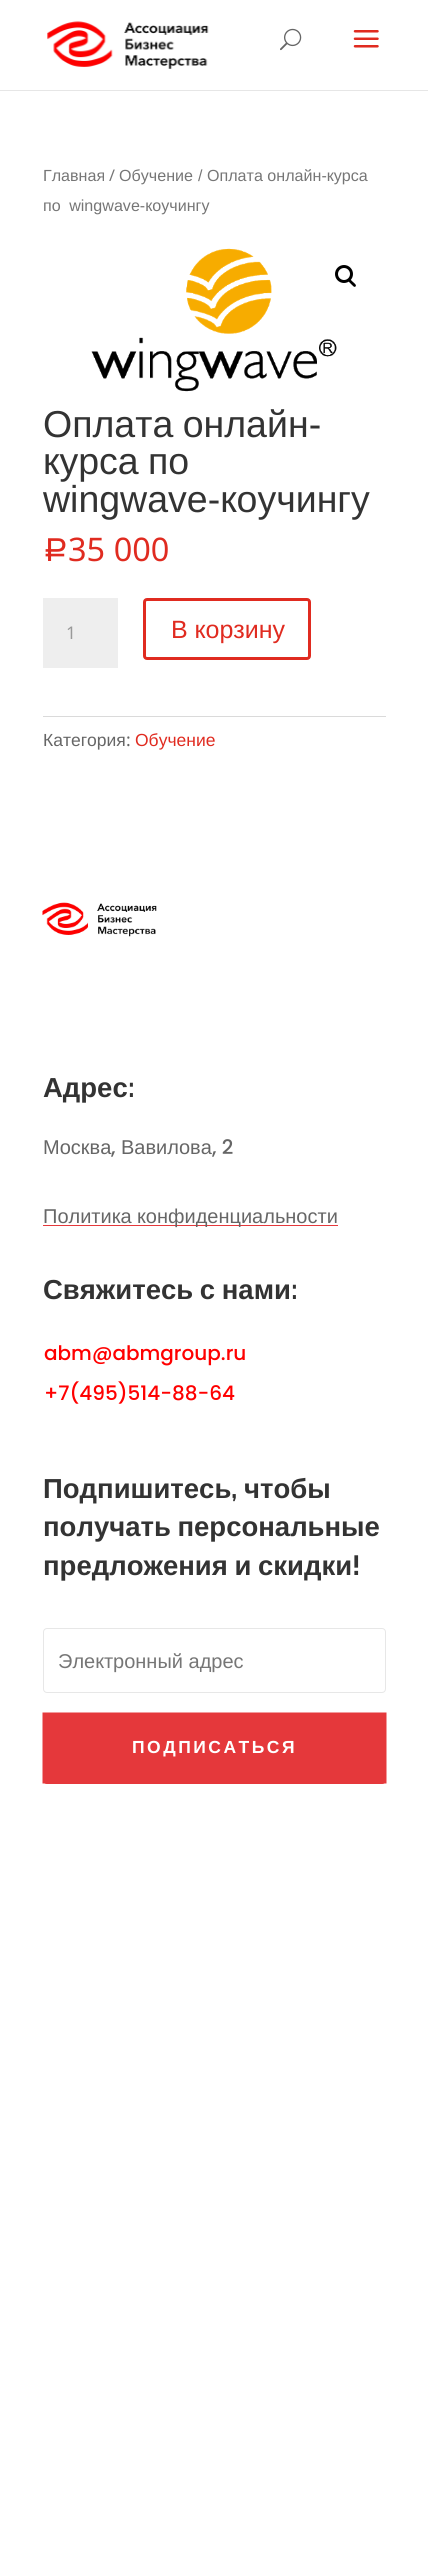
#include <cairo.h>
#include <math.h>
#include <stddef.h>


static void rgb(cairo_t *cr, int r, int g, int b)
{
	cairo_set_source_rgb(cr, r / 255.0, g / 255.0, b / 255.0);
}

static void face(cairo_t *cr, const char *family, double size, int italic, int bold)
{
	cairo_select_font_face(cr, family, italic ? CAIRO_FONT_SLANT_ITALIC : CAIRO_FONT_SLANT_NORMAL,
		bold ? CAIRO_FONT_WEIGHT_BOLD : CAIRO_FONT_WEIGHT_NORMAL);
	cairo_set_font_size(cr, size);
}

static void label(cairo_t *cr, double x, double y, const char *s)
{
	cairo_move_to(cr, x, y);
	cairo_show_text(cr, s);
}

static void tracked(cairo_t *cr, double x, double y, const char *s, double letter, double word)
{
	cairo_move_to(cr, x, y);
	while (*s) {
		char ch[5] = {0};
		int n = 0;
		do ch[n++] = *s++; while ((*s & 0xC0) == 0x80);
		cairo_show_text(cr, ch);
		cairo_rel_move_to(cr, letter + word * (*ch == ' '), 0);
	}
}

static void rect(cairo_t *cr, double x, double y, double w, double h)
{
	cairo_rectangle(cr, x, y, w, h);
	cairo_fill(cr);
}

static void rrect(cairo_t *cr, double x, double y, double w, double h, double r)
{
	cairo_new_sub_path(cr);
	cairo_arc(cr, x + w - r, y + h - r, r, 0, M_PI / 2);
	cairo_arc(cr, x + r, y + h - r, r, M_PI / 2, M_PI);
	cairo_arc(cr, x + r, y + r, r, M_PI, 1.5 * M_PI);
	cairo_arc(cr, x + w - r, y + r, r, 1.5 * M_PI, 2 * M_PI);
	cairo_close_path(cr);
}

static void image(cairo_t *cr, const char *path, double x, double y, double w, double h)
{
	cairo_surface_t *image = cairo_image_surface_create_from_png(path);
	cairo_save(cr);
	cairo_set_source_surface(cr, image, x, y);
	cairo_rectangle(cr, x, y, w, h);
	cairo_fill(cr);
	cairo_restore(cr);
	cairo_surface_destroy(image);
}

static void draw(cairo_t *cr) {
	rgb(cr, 255, 255, 255);
	cairo_paint(cr);
	rgb(cr, 230, 230, 230);
	cairo_new_path(cr);
	cairo_move_to(cr, 0, 90);
	cairo_line_to(cr, 0, 91);
	cairo_line_to(cr, 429, 91);
	cairo_line_to(cr, 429, 1);
	cairo_line_to(cr, 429, 90);
	cairo_close_path(cr);
	cairo_fill(cr);
	image(cr, "image0.png", 47, 21, 162, 48);
	image(cr, "image1.png", 280, 28, 22, 23);
	image(cr, "image2.png", 353, 30, 26, 18);
	face(cr, "Liberation Sans", 16.1, 0, 0);
	rgb(cr, 118, 118, 118);
	label(cr, 43, 181, "Главная");
	face(cr, "Noto Sans", 16.1, 0, 0);
	label(cr, 109, 181, "/");
	face(cr, "Liberation Sans", 16.1, 0, 0);
	label(cr, 119, 181, "Обучение");
	label(cr, 198, 181, "/ Оплата онлайн-курса");
	tracked(cr, 43, 211, "по wingwave-коучингу", 0, 4);
	image(cr, "image3.png", 91, 248, 246, 144);
	cairo_arc(cr, 344, 274, 7.5, 0, 2 * M_PI);
	rgb(cr, 0, 0, 0);
	cairo_set_line_width(cr, 3);
	cairo_stroke(cr);
	cairo_new_path(cr);
	cairo_move_to(cr, 348.5, 279.5);
	cairo_curve_to(cr, 350, 278, 352, 281.5, 353, 282);
	cairo_curve_to(cr, 354, 283, 357, 285, 355.5, 286.5);
	cairo_curve_to(cr, 354, 288, 352, 284.5, 351, 284);
	cairo_curve_to(cr, 350.5, 283, 347, 281, 348.5, 279.5);
	cairo_close_path(cr);
	cairo_fill(cr);
	face(cr, "Liberation Sans", 37.5, 0, 0);
	rgb(cr, 51, 51, 51);
	tracked(cr, 43, 437, "Оплата онлайн-", 0, -1);
	tracked(cr, 43, 474, "курса по", 0, -1);
	label(cr, 43, 512, "wingwave-коучингу");
	face(cr, "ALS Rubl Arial", 32.5, 0, 0);
	rgb(cr, 224, 43, 32);
	label(cr, 43, 561, "Р");
	face(cr, "Noto Sans", 32.5, 0, 0);
	label(cr, 68, 561, "35 000");
	rgb(cr, 238, 238, 238);
	rect(cr, 43, 598, 75, 70);
	face(cr, "Noto Sans", 17.5, 0, 0);
	rgb(cr, 153, 153, 153);
	label(cr, 66, 639, "1");
	rrect(cr, 144.5, 599.5, 165, 59, 2.5);
	rgb(cr, 224, 43, 32);
	cairo_stroke(cr);
	face(cr, "Liberation Sans", 25, 0, 0);
	label(cr, 171, 638, "В корзину");
	rgb(cr, 218, 218, 218);
	rect(cr, 43, 716, 343, 1);
	face(cr, "Liberation Sans", 17.5, 0, 0);
	rgb(cr, 102, 102, 102);
	label(cr, 43, 746, "Категория");
	face(cr, "Noto Sans", 17.5, 0, 0);
	label(cr, 126, 746, ":");
	face(cr, "Liberation Sans", 17.5, 0, 0);
	rgb(cr, 224, 43, 32);
	label(cr, 135, 746, "Обучение");
	image(cr, "image4.png", 42, 902, 115, 35);
	face(cr, "Liberation Sans", 27.5, 0, 1);
	rgb(cr, 51, 51, 51);
	label(cr, 43, 1097, "Адрес");
	face(cr, "Raleway Thin", 27.5, 0, 0);
	label(cr, 128, 1097, ":");
	face(cr, "Liberation Sans", 20, 0, 0);
	rgb(cr, 102, 102, 102);
	label(cr, 43, 1154, "Москва");
	face(cr, "Poppins Medium", 20, 0, 0);
	label(cr, 111, 1154, ",");
	face(cr, "Liberation Sans", 20, 0, 0);
	label(cr, 121, 1154, "Вавилова");
	face(cr, "Poppins Medium", 20, 0, 0);
	label(cr, 212, 1154, ", 2");
	rgb(cr, 229, 56, 59);
	rect(cr, 43, 1225, 295, 1);
	face(cr, "Liberation Sans", 20, 0, 0);
	rgb(cr, 102, 102, 102);
	label(cr, 43, 1223, "Политика конфиденциальности");
	face(cr, "Liberation Sans", 27.5, 0, 1);
	rgb(cr, 51, 51, 51);
	tracked(cr, 43, 1299, "Свяжитесь с нами", 0, -1);
	face(cr, "Raleway Thin", 27.5, 0, 0);
	label(cr, 291, 1299, ":");
	face(cr, "Poppins Medium", 20, 0, 0);
	rgb(cr, 255, 0, 0);
	label(cr, 44, 1360, "abm@abmgroup.ru");
	label(cr, 44, 1400, "+7(495)514-88-64");
	face(cr, "Liberation Sans", 27.5, 0, 1);
	rgb(cr, 51, 51, 51);
	label(cr, 43, 1498, "Подпишитесь");
	face(cr, "Raleway Thin", 27.5, 0, 0);
	label(cr, 231, 1498, ",");
	face(cr, "Liberation Sans", 27.5, 0, 1);
	label(cr, 244, 1498, "чтобы");
	tracked(cr, 43, 1536, "получать персональные", 0, -1);
	tracked(cr, 43, 1575, "предложения и скидки", 0, -1);
	face(cr, "Raleway Thin", 27.5, 0, 0);
	label(cr, 352, 1575, "!");
	rrect(cr, 43.5, 1628.5, 342, 64, 3.5);
	rgb(cr, 231, 231, 231);
	cairo_set_line_width(cr, 1);
	cairo_stroke(cr);
	face(cr, "Liberation Sans", 20, 0, 0);
	rgb(cr, 118, 118, 118);
	label(cr, 58, 1668, "Электронный адрес");
	rgb(cr, 229, 56, 59);
	rrect(cr, 43, 1713, 343, 71, 4);
	cairo_fill(cr);
	cairo_new_path(cr);
	cairo_move_to(cr, 50, 1720);
	cairo_line_to(cr, 379, 1720);
	cairo_line_to(cr, 379, 1776);
	cairo_line_to(cr, 50, 1776);
	cairo_close_path(cr);
	cairo_set_line_width(cr, 15);
	cairo_stroke(cr);
	face(cr, "Liberation Sans", 17.5, 0, 1);
	rgb(cr, 255, 255, 255);
	tracked(cr, 132, 1753, "ПОДПИСАТЬСЯ", 2.5, 0);
}

int main(void) {
	cairo_surface_t *surface = cairo_image_surface_create(CAIRO_FORMAT_RGB24, 428, 2566);
	cairo_t *cr = cairo_create(surface);
	cairo_font_options_t *options = cairo_font_options_create();
	cairo_font_options_set_hint_metrics(options, CAIRO_HINT_METRICS_OFF);
	cairo_font_options_set_hint_style(options, CAIRO_HINT_STYLE_NONE);
	cairo_set_font_options(cr, options);
	cairo_set_miter_limit(cr, 4);
	draw(cr);
	cairo_surface_write_to_png(surface, "render.png");
	cairo_font_options_destroy(options);
	cairo_destroy(cr);
	cairo_surface_destroy(surface);
	return 0;
}
